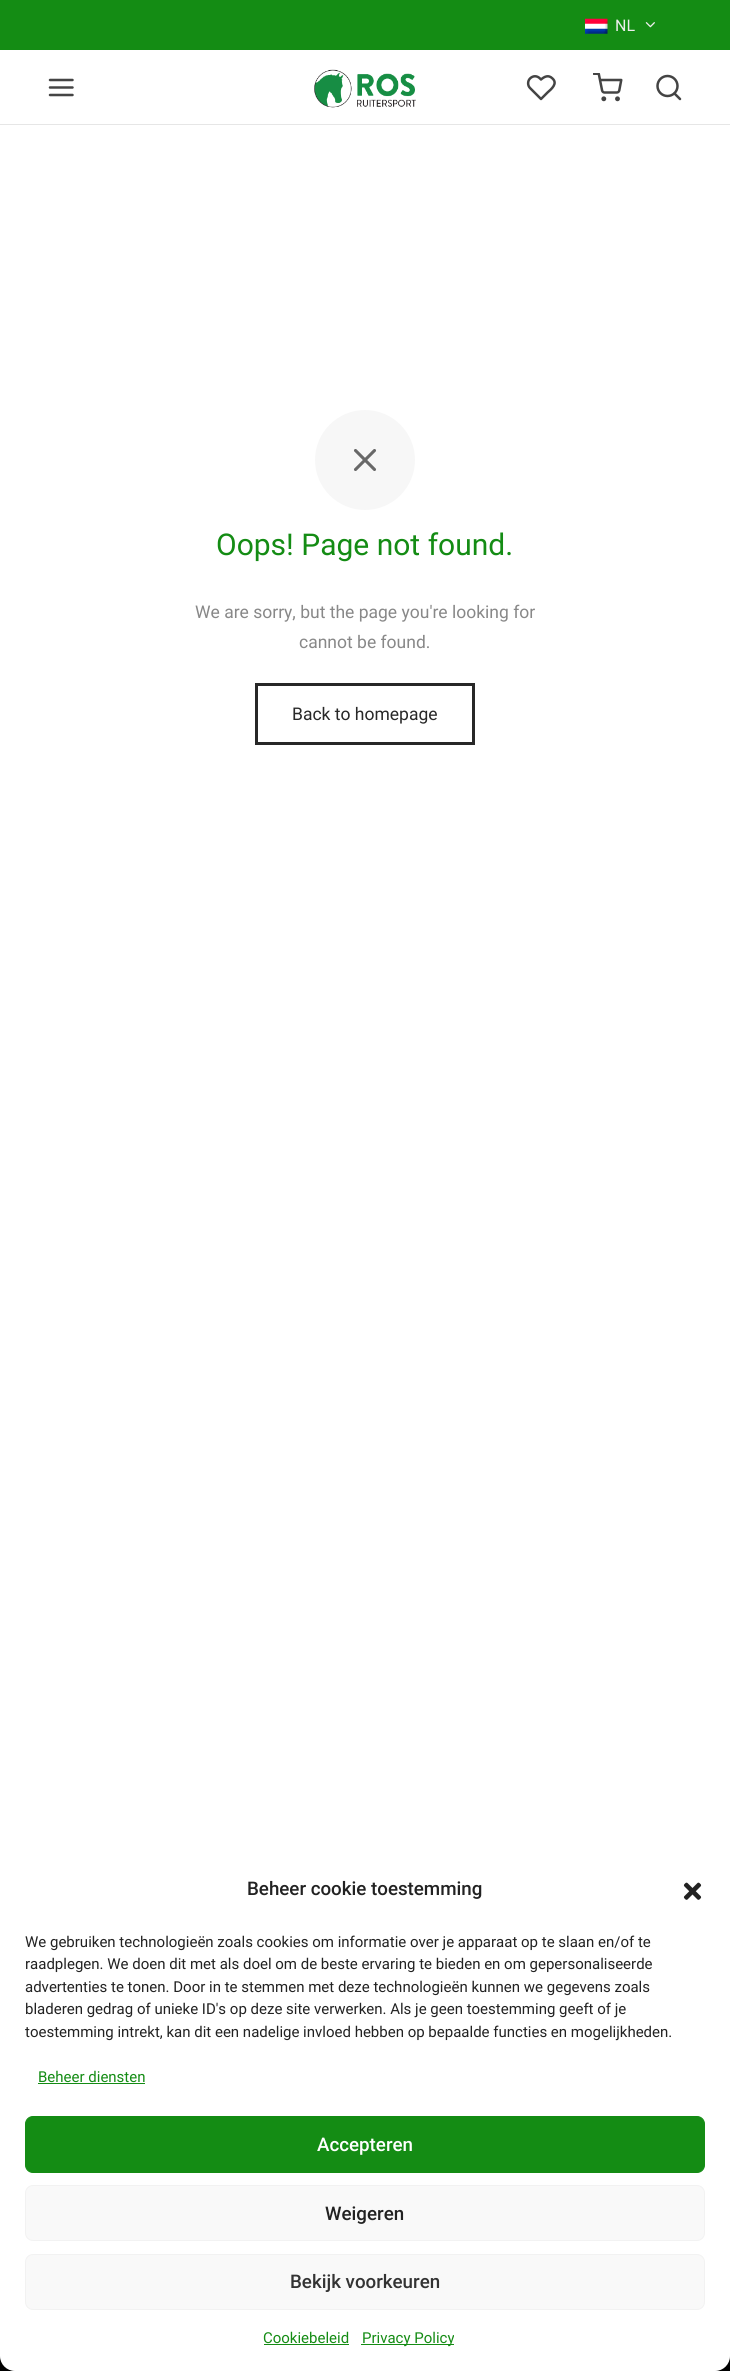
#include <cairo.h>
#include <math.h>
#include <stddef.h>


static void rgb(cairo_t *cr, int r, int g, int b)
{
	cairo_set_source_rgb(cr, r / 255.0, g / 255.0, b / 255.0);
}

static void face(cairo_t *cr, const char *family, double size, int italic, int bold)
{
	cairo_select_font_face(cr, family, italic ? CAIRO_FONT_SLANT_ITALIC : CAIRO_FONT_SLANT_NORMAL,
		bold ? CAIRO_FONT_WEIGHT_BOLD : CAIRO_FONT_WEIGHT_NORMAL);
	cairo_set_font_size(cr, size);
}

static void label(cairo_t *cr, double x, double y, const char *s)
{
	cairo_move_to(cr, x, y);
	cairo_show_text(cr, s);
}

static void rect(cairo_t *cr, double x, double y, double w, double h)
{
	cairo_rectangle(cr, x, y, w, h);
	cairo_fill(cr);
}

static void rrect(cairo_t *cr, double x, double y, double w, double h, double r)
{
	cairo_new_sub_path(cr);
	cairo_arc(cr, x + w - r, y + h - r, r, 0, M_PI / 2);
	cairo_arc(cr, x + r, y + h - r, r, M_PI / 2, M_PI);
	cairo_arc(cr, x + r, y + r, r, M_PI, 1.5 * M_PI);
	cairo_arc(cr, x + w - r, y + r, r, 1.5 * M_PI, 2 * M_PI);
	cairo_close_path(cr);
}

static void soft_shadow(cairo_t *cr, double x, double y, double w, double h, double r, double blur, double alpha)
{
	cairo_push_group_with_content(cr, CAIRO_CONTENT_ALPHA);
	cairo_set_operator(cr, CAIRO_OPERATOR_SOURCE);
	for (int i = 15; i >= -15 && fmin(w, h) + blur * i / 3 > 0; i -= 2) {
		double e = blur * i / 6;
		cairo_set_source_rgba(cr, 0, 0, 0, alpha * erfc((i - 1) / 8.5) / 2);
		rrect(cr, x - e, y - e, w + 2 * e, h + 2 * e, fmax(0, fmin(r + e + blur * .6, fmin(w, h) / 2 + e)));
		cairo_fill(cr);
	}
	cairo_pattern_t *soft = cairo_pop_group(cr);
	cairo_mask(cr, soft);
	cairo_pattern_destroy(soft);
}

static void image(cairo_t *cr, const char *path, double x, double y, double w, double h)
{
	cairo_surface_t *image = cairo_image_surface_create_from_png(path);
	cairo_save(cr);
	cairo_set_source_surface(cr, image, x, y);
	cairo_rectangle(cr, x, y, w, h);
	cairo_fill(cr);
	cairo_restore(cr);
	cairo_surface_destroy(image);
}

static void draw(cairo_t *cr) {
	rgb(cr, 255, 255, 255);
	cairo_paint(cr);
	rgb(cr, 20, 140, 20);
	rect(cr, 0, 0, 730, 50);
	image(cr, "image0.png", 585, 18, 23, 16);
	face(cr, "Roboto", 16, 0, 0);
	rgb(cr, 238, 238, 238);
	label(cr, 615, 31, "NL");
	image(cr, "image1.png", 645, 22, 10, 6);
	cairo_new_path(cr);
	cairo_move_to(cr, 50, 87.5);
	cairo_line_to(cr, 72.5, 87.5);
	cairo_move_to(cr, 50, 80);
	cairo_line_to(cr, 72.5, 80);
	cairo_move_to(cr, 50, 95);
	cairo_line_to(cr, 72.5, 95);
	rgb(cr, 68, 68, 68);
	cairo_set_line_width(cr, 2.5);
	cairo_set_line_cap(cr, CAIRO_LINE_CAP_ROUND);
	cairo_set_line_join(cr, CAIRO_LINE_JOIN_ROUND);
	cairo_stroke(cr);
	image(cr, "image2.png", 314, 69, 102, 39);
	cairo_new_path(cr);
	cairo_move_to(cr, 552.5, 78.5);
	cairo_curve_to(cr, 548.5, 74.5, 544.5, 76.5, 541, 79.5);
	cairo_line_to(cr, 540, 78.5);
	cairo_curve_to(cr, 537, 75.5, 533, 75.5, 530, 78.5);
	cairo_curve_to(cr, 527.5, 81, 527.5, 85.5, 530, 88);
	cairo_line_to(cr, 541, 99);
	cairo_line_to(cr, 547.5, 92.5);
	cairo_curve_to(cr, 551.5, 89, 558, 83.5, 552.5, 78.5);
	cairo_close_path(cr);
	cairo_stroke(cr);
	image(cr, "image3.png", 593, 73, 30, 29);
	cairo_arc(cr, 667.5, 86, 10, 0, 2 * M_PI);
	cairo_set_line_cap(cr, CAIRO_LINE_CAP_BUTT);
	cairo_set_line_join(cr, CAIRO_LINE_JOIN_MITER);
	cairo_stroke(cr);
	cairo_new_path(cr);
	cairo_move_to(cr, 680, 99);
	cairo_line_to(cr, 674.5, 93.5);
	cairo_set_line_cap(cr, CAIRO_LINE_CAP_ROUND);
	cairo_set_line_join(cr, CAIRO_LINE_JOIN_ROUND);
	cairo_stroke(cr);
	rgb(cr, 230, 230, 230);
	rect(cr, 0, 124, 730, 1);
	rgb(cr, 247, 247, 247);
	cairo_arc(cr, 365, 460, 50, 0, 2 * M_PI);
	cairo_fill(cr);
	cairo_new_path(cr);
	cairo_move_to(cr, 374.5, 450.5);
	cairo_line_to(cr, 355.5, 469.5);
	cairo_move_to(cr, 355.5, 450.5);
	cairo_line_to(cr, 374.5, 469.5);
	rgb(cr, 104, 104, 104);
	cairo_set_line_width(cr, 3.1);
	cairo_stroke(cr);
	face(cr, "Roboto", 30, 0, 0);
	rgb(cr, 20, 140, 20);
	label(cr, 216, 555, "Oops! Page not found.");
	face(cr, "Roboto", 17.5, 0, 0);
	rgb(cr, 136, 136, 136);
	label(cr, 195, 618, "We are sorry, but the page you're looking for");
	label(cr, 299, 648, "cannot be found.");
	cairo_rectangle(cr, 256.5, 684.5, 217, 59);
	rgb(cr, 40, 40, 40);
	cairo_set_line_width(cr, 3);
	cairo_set_line_cap(cr, CAIRO_LINE_CAP_BUTT);
	cairo_set_line_join(cr, CAIRO_LINE_JOIN_MITER);
	cairo_stroke(cr);
	label(cr, 292, 720, "Back to homepage");
	rgb(cr, 0, 0, 0);
	rect(cr, 0, 2356, 730, 15);
	rgb(cr, 128, 128, 128);
	soft_shadow(cr, 643, 2279, 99, 75, 2.5, 3, 1);
	rgb(cr, 255, 255, 255);
	rrect(cr, 0, 1855, 730, 516, 15);
	cairo_fill(cr);
	face(cr, "Roboto Medium", 18.75, 0, 0);
	rgb(cr, 34, 34, 34);
	label(cr, 247, 1895, "Beheer cookie toestemming");
	image(cr, "image4.png", 683, 1882, 19, 18);
	face(cr, "Roboto", 15, 0, 0);
	label(cr, 25, 1947, "We gebruiken technologieën zoals cookies om informatie over je apparaat op te slaan en/of te");
	label(cr, 25, 1969, "raadplegen. We doen dit met als doel om de beste ervaring te bieden en om gepersonaliseerde");
	label(cr, 25, 1992, "advertenties te tonen. Door in te stemmen met deze technologieën kunnen we gegevens zoals");
	label(cr, 25, 2014, "bladeren gedrag of unieke ID's op deze site verwerken. Als je geen toestemming geeft of je");
	label(cr, 25, 2037, "toestemming intrekt, kan dit een nadelige invloed hebben op bepaalde functies en mogelijkheden.");
	rgb(cr, 20, 140, 20);
	label(cr, 38, 2082, "Beheer diensten");
	rect(cr, 38, 2083, 107, 1);
	rrect(cr, 25.5, 2116.5, 679, 56, 7.5);
	cairo_fill_preserve(cr);
	cairo_set_line_width(cr, 1);
	cairo_stroke(cr);
	face(cr, "Roboto Medium", 18.75, 0, 0);
	rgb(cr, 255, 255, 255);
	label(cr, 317, 2151, "Accepteren");
	rgb(cr, 249, 249, 249);
	rrect(cr, 25.5, 2185.5, 679, 55, 7.5);
	cairo_fill_preserve(cr);
	rgb(cr, 242, 242, 242);
	cairo_stroke(cr);
	rgb(cr, 34, 34, 34);
	label(cr, 325, 2220, "Weigeren");
	rgb(cr, 249, 249, 249);
	rrect(cr, 25.5, 2254.5, 679, 55, 7.5);
	cairo_fill_preserve(cr);
	rgb(cr, 242, 242, 242);
	cairo_stroke(cr);
	rgb(cr, 51, 51, 51);
	label(cr, 290, 2288, "Bekijk voorkeuren");
	face(cr, "Roboto", 15, 0, 0);
	rgb(cr, 20, 140, 20);
	label(cr, 263, 2343, "Cookiebeleid");
	rect(cr, 264, 2344, 85, 1);
	rect(cr, 361, 2344, 93, 1);
	label(cr, 362, 2343, "Privacy Policy");
}

int main(void) {
	cairo_surface_t *surface = cairo_image_surface_create(CAIRO_FORMAT_RGB24, 730, 2371);
	cairo_t *cr = cairo_create(surface);
	cairo_font_options_t *options = cairo_font_options_create();
	cairo_font_options_set_hint_metrics(options, CAIRO_HINT_METRICS_OFF);
	cairo_font_options_set_hint_style(options, CAIRO_HINT_STYLE_NONE);
	cairo_set_font_options(cr, options);
	cairo_set_miter_limit(cr, 4);
	draw(cr);
	cairo_surface_write_to_png(surface, "render.png");
	cairo_font_options_destroy(options);
	cairo_destroy(cr);
	cairo_surface_destroy(surface);
	return 0;
}
